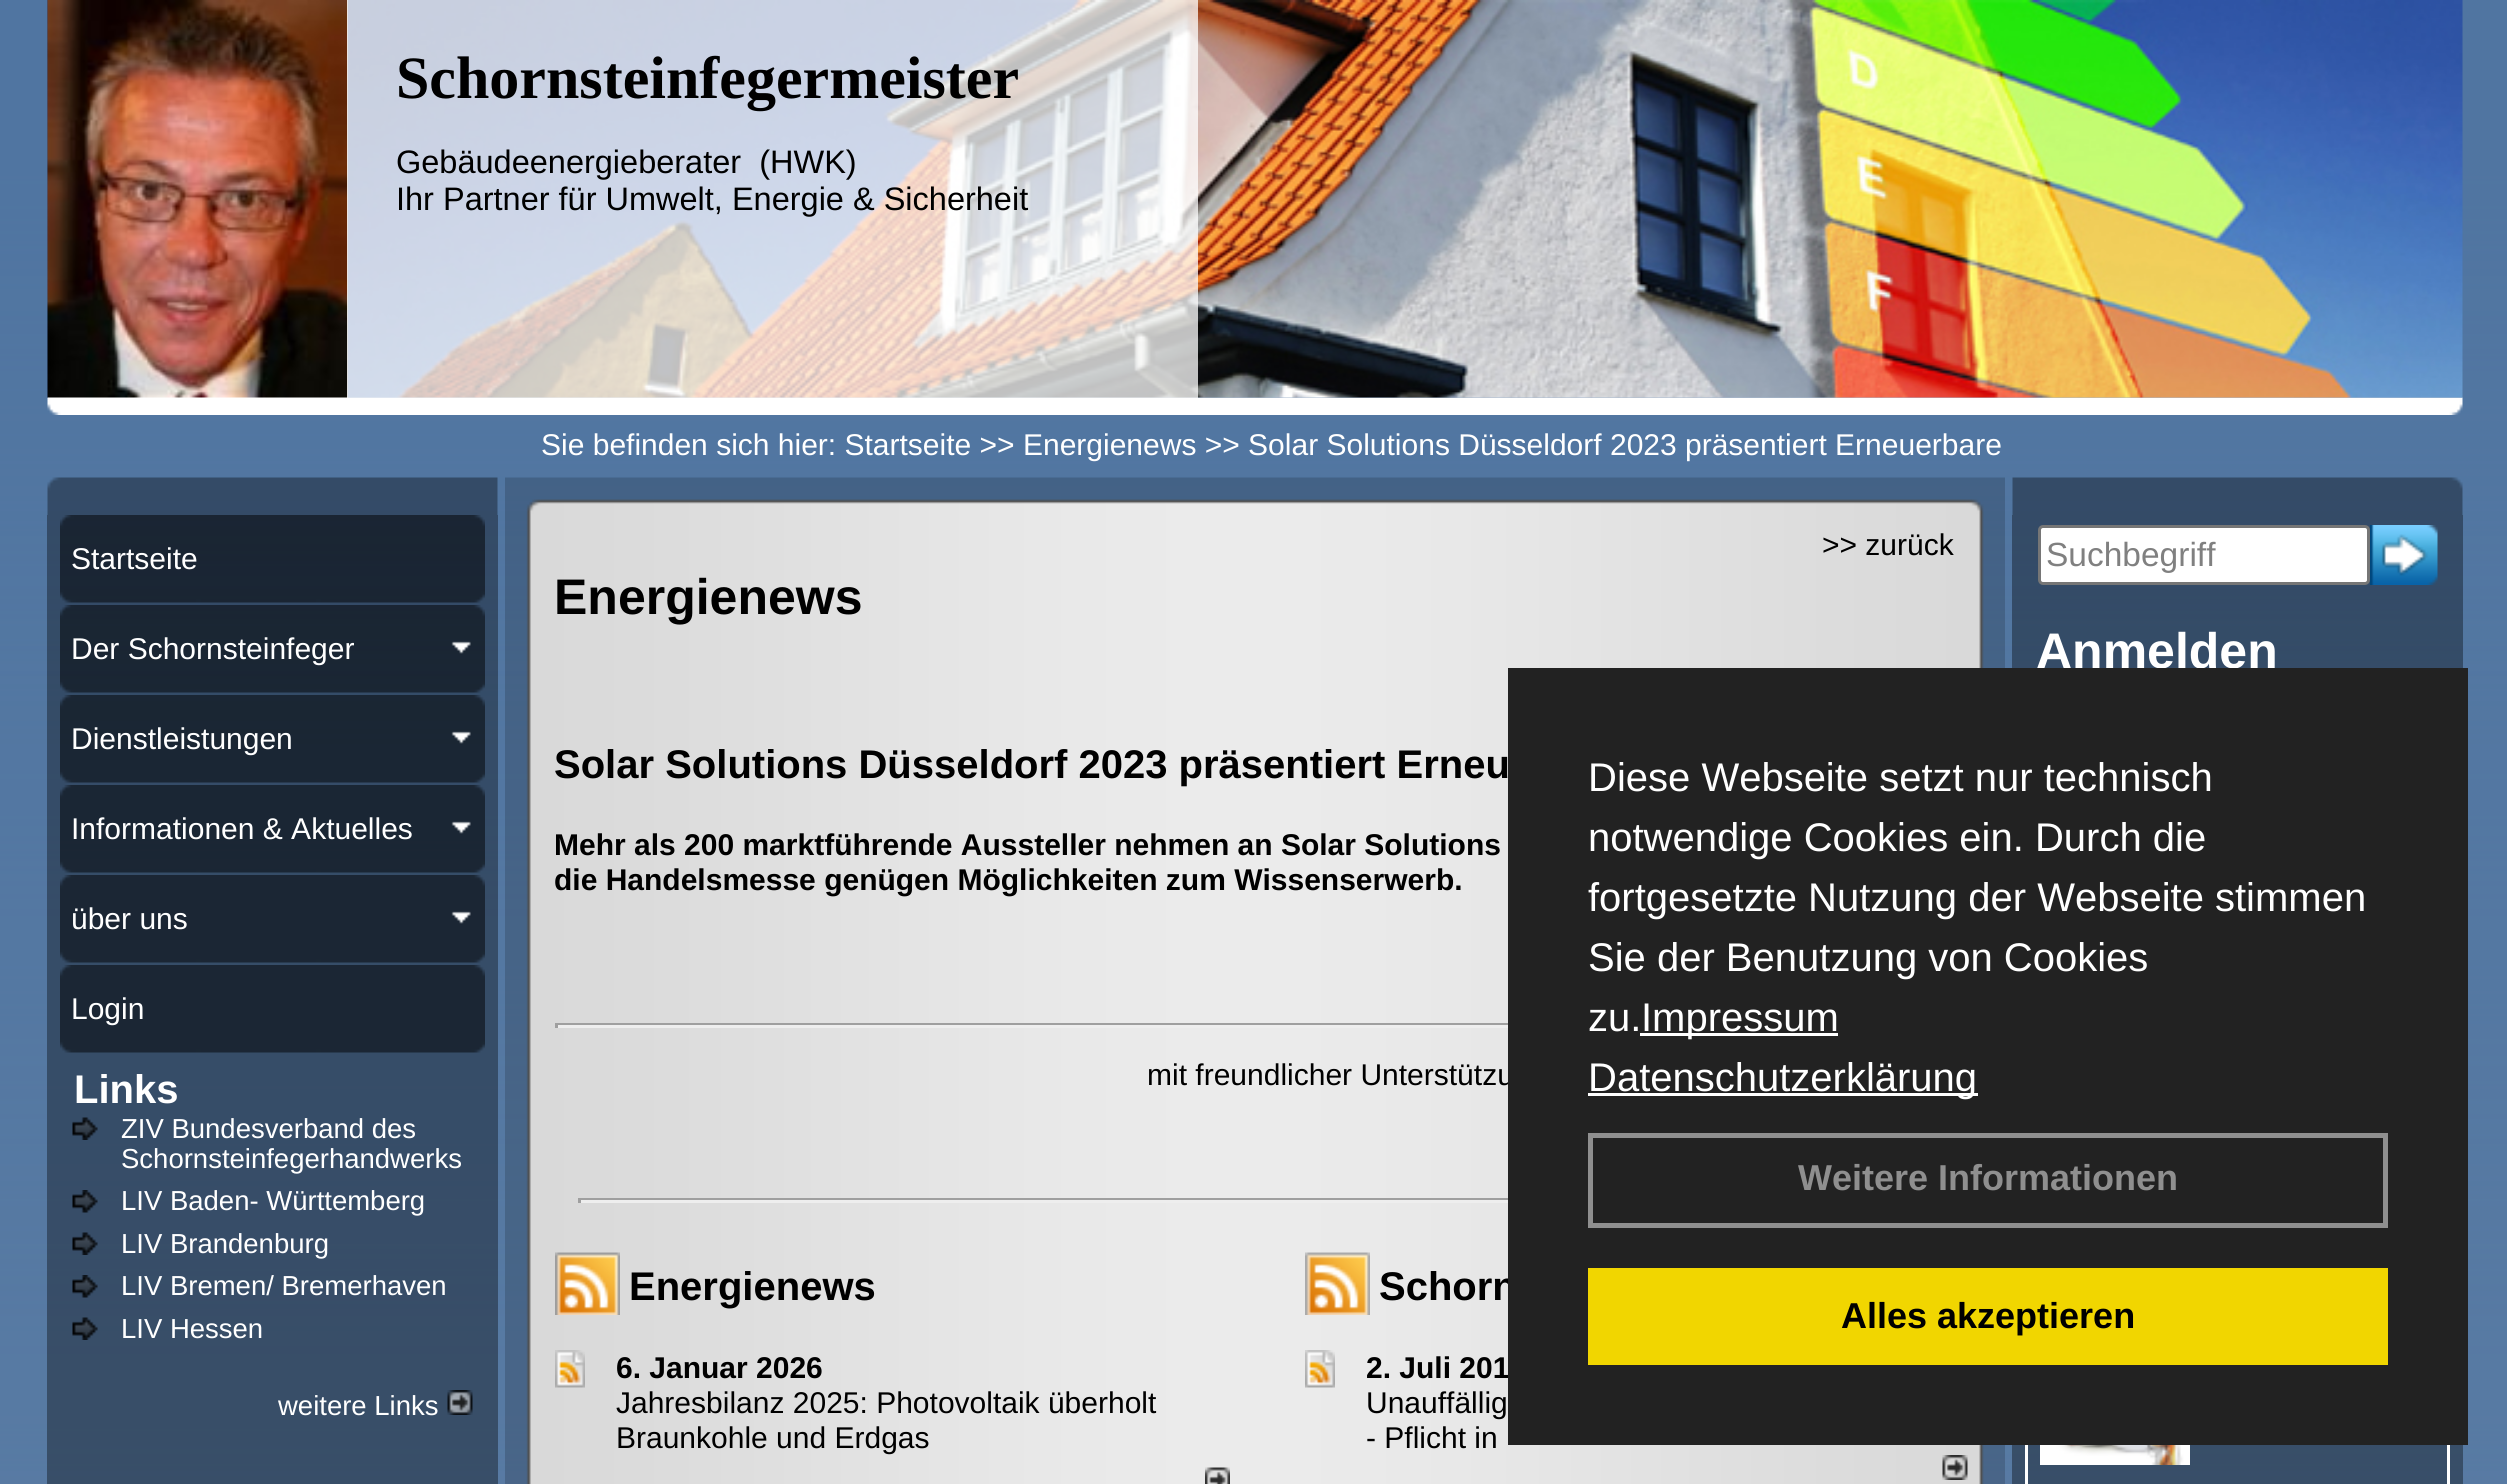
#include <cairo.h>
#include <math.h>
#include <stddef.h>


static void rgb(cairo_t *cr, int r, int g, int b)
{
	cairo_set_source_rgb(cr, r / 255.0, g / 255.0, b / 255.0);
}

static void face(cairo_t *cr, const char *family, double size, int italic, int bold)
{
	cairo_select_font_face(cr, family, italic ? CAIRO_FONT_SLANT_ITALIC : CAIRO_FONT_SLANT_NORMAL,
		bold ? CAIRO_FONT_WEIGHT_BOLD : CAIRO_FONT_WEIGHT_NORMAL);
	cairo_set_font_size(cr, size);
}

static void label(cairo_t *cr, double x, double y, const char *s)
{
	cairo_move_to(cr, x, y);
	cairo_show_text(cr, s);
}

static void rect(cairo_t *cr, double x, double y, double w, double h)
{
	cairo_rectangle(cr, x, y, w, h);
	cairo_fill(cr);
}

static void rrect(cairo_t *cr, double x, double y, double w, double h, double r)
{
	cairo_new_sub_path(cr);
	cairo_arc(cr, x + w - r, y + h - r, r, 0, M_PI / 2);
	cairo_arc(cr, x + r, y + h - r, r, M_PI / 2, M_PI);
	cairo_arc(cr, x + r, y + r, r, M_PI, 1.5 * M_PI);
	cairo_arc(cr, x + w - r, y + r, r, 1.5 * M_PI, 2 * M_PI);
	cairo_close_path(cr);
}

static void image(cairo_t *cr, const char *path, double x, double y, double w, double h)
{
	cairo_surface_t *image = cairo_image_surface_create_from_png(path);
	cairo_save(cr);
	cairo_set_source_surface(cr, image, x, y);
	cairo_rectangle(cr, x, y, w, h);
	cairo_fill(cr);
	cairo_restore(cr);
	cairo_surface_destroy(image);
}

static void draw(cairo_t *cr) {
	rgb(cr, 255, 255, 255);
	cairo_paint(cr);
	image(cr, "image0.png", 0, 0, 2507, 1484);
	image(cr, "image3.png", 47, 397, 2416, 18);
	image(cr, "image1.png", 47, 0, 2416, 398);
	rgb(cr, 255, 255, 255);
	rect(cr, 48, 0, 300, 398);
	image(cr, "image2.png", 47, 0, 301, 398);
	cairo_set_source_rgba(cr, 1, 1, 1, 0.75);
	rect(cr, 347, 0, 851, 398);
	face(cr, "Liberation Serif", 60, 0, 1);
	rgb(cr, 0, 0, 0);
	label(cr, 396, 98, "Schornsteinfegermeister");
	face(cr, "Liberation Sans", 32.5, 0, 0);
	label(cr, 396, 173, "Gebäudeenergieberater  (HWK)");
	label(cr, 396, 210, "Ihr Partner für Umwelt, Energie & Sicherheit");
	face(cr, "Liberation Sans", 30, 0, 0);
	rgb(cr, 255, 255, 255);
	label(cr, 541, 455, "Sie befinden sich hier: Startseite >> Energienews >> Solar Solutions Düsseldorf 2023 präsentiert Erneuerbare");
	image(cr, "image4.png", 47, 477, 451, 38);
	image(cr, "image5.png", 505, 477, 1500, 38);
	image(cr, "image6.png", 2012, 477, 451, 38);
	cairo_set_source_rgba(cr, 0, 0, 0, 0.36);
	rect(cr, 47, 515, 451, 969);
	image(cr, "image7.png", 60, 515, 425, 88);
	rgb(cr, 255, 255, 255);
	label(cr, 71, 569, "Startseite");
	image(cr, "image8.png", 60, 605, 425, 88);
	label(cr, 71, 659, "Der Schornsteinfeger");
	image(cr, "image9.png", 451, 641, 20, 13);
	image(cr, "image10.png", 60, 695, 425, 88);
	label(cr, 71, 749, "Dienstleistungen");
	image(cr, "image11.png", 451, 731, 20, 13);
	image(cr, "image12.png", 60, 785, 425, 88);
	label(cr, 71, 839, "Informationen & Aktuelles");
	image(cr, "image13.png", 451, 821, 20, 13);
	image(cr, "image14.png", 60, 875, 425, 88);
	label(cr, 71, 929, "über uns");
	image(cr, "image15.png", 451, 911, 20, 13);
	image(cr, "image16.png", 60, 965, 425, 88);
	label(cr, 71, 1019, "Login");
	face(cr, "Liberation Sans", 40, 0, 1);
	label(cr, 74, 1103, "Links");
	image(cr, "image17.png", 72, 1117, 26, 23);
	face(cr, "Liberation Sans", 27.5, 0, 0);
	label(cr, 121, 1138, "ZIV Bundesverband des");
	label(cr, 121, 1168, "Schornsteinfegerhandwerks");
	image(cr, "image18.png", 72, 1190, 26, 23);
	label(cr, 121, 1210, "LIV Baden- Württemberg");
	image(cr, "image19.png", 72, 1232, 26, 23);
	label(cr, 121, 1253, "LIV Brandenburg");
	image(cr, "image20.png", 72, 1275, 26, 23);
	label(cr, 121, 1295, "LIV Bremen/ Bremerhaven");
	image(cr, "image21.png", 72, 1317, 26, 23);
	label(cr, 121, 1338, "LIV Hessen");
	label(cr, 278, 1415, "weitere Links");
	image(cr, "image22.png", 447, 1390, 26, 25);
	image(cr, "image23.png", 505, 515, 1500, 969);
	face(cr, "Liberation Sans", 30, 0, 0);
	rgb(cr, 0, 0, 0);
	label(cr, 1822, 555, ">> zurück");
	face(cr, "Liberation Sans", 50, 0, 1);
	label(cr, 554, 614, "Energienews");
	face(cr, "Liberation Sans", 40, 0, 1);
	label(cr, 554, 778, "Solar Solutions Düsseldorf 2023 präsentiert Erneu");
	face(cr, "Liberation Sans", 30, 0, 1);
	label(cr, 554, 855, "Mehr als 200 marktführende Aussteller nehmen an Solar Solutions");
	label(cr, 554, 890, "die Handelsmesse genügen Möglichkeiten zum Wissenserwerb.");
	rgb(cr, 159, 159, 159);
	rect(cr, 555, 1023, 953, 2);
	rgb(cr, 238, 238, 238);
	rect(cr, 555, 1025, 953, 3);
	rgb(cr, 159, 159, 159);
	rect(cr, 555, 1023, 3, 5);
	face(cr, "Liberation Sans", 30, 0, 0);
	rgb(cr, 0, 0, 0);
	label(cr, 1147, 1085, "mit freundlicher Unterstützu");
	rgb(cr, 159, 159, 159);
	rect(cr, 578, 1198, 930, 2);
	rgb(cr, 238, 238, 238);
	rect(cr, 578, 1200, 930, 3);
	rgb(cr, 159, 159, 159);
	rect(cr, 578, 1198, 3, 5);
	image(cr, "image24.png", 555, 1252, 65, 63);
	face(cr, "Liberation Sans", 40, 0, 1);
	rgb(cr, 0, 0, 0);
	label(cr, 629, 1300, "Energienews");
	image(cr, "image25.png", 555, 1350, 30, 38);
	face(cr, "Liberation Sans", 30, 0, 1);
	label(cr, 616, 1378, "6. Januar 2026");
	face(cr, "Liberation Sans", 30, 0, 0);
	label(cr, 616, 1413, "Jahresbilanz 2025: Photovoltaik überholt");
	label(cr, 616, 1448, "Braunkohle und Erdgas");
	image(cr, "image26.png", 1205, 1467, 25, 17);
	image(cr, "image27.png", 1305, 1252, 65, 63);
	face(cr, "Liberation Sans", 40, 0, 1);
	label(cr, 1379, 1300, "Schorn");
	image(cr, "image28.png", 1305, 1350, 30, 38);
	face(cr, "Liberation Sans", 30, 0, 1);
	label(cr, 1366, 1378, "2. Juli 201");
	face(cr, "Liberation Sans", 30, 0, 0);
	label(cr, 1366, 1413, "Unauffällig");
	label(cr, 1366, 1448, "- Pflicht in");
	image(cr, "image29.png", 1942, 1455, 26, 25);
	cairo_set_source_rgba(cr, 0, 0, 0, 0.36);
	rect(cr, 2012, 515, 451, 969);
	rgb(cr, 255, 255, 255);
	rrect(cr, 2039.5, 526.5, 329, 57, 3.5);
	cairo_fill_preserve(cr);
	rgb(cr, 118, 118, 118);
	cairo_set_line_width(cr, 3);
	cairo_stroke(cr);
	face(cr, "Liberation Sans", 33.5, 0, 0);
	rgb(cr, 128, 128, 128);
	label(cr, 2046, 566, "Suchbegriff");
	image(cr, "image30.png", 2370, 525, 68, 60);
	face(cr, "Liberation Sans", 50, 0, 1);
	rgb(cr, 255, 255, 255);
	label(cr, 2036, 668, "Anmelden");
	cairo_rectangle(cr, 2026.5, 1236.5, 422, 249);
	cairo_stroke(cr);
	image(cr, "image31.png", 2040, 1445, 150, 20);
	rgb(cr, 34, 34, 34);
	rect(cr, 1508, 668, 960, 777);
	face(cr, "Liberation Sans", 40, 0, 0);
	rgb(cr, 255, 255, 255);
	label(cr, 1588, 791, "Diese Webseite setzt nur technisch");
	label(cr, 1588, 851, "notwendige Cookies ein. Durch die");
	label(cr, 1588, 911, "fortgesetzte Nutzung der Webseite stimmen");
	label(cr, 1588, 971, "Sie der Benutzung von Cookies");
	label(cr, 1588, 1031, "zu.");
	rect(cr, 1640, 1033, 198, 3);
	label(cr, 1641, 1031, "Impressum");
	rect(cr, 1588, 1093, 390, 3);
	label(cr, 1588, 1091, "Datenschutzerklärung");
	cairo_rectangle(cr, 1590.5, 1135.5, 795, 90);
	rgb(cr, 143, 143, 143);
	cairo_set_line_width(cr, 5);
	cairo_stroke(cr);
	face(cr, "Liberation Sans", 36, 0, 1);
	label(cr, 1798, 1190, "Weitere Informationen");
	rgb(cr, 241, 214, 0);
	rect(cr, 1588, 1268, 800, 97);
	rgb(cr, 0, 0, 0);
	label(cr, 1841, 1328, "Alles akzeptieren");
}

int main(void) {
	cairo_surface_t *surface = cairo_image_surface_create(CAIRO_FORMAT_RGB24, 2507, 1484);
	cairo_t *cr = cairo_create(surface);
	cairo_font_options_t *options = cairo_font_options_create();
	cairo_font_options_set_hint_metrics(options, CAIRO_HINT_METRICS_OFF);
	cairo_font_options_set_hint_style(options, CAIRO_HINT_STYLE_NONE);
	cairo_set_font_options(cr, options);
	cairo_set_miter_limit(cr, 4);
	draw(cr);
	cairo_surface_write_to_png(surface, "render.png");
	cairo_font_options_destroy(options);
	cairo_destroy(cr);
	cairo_surface_destroy(surface);
	return 0;
}
